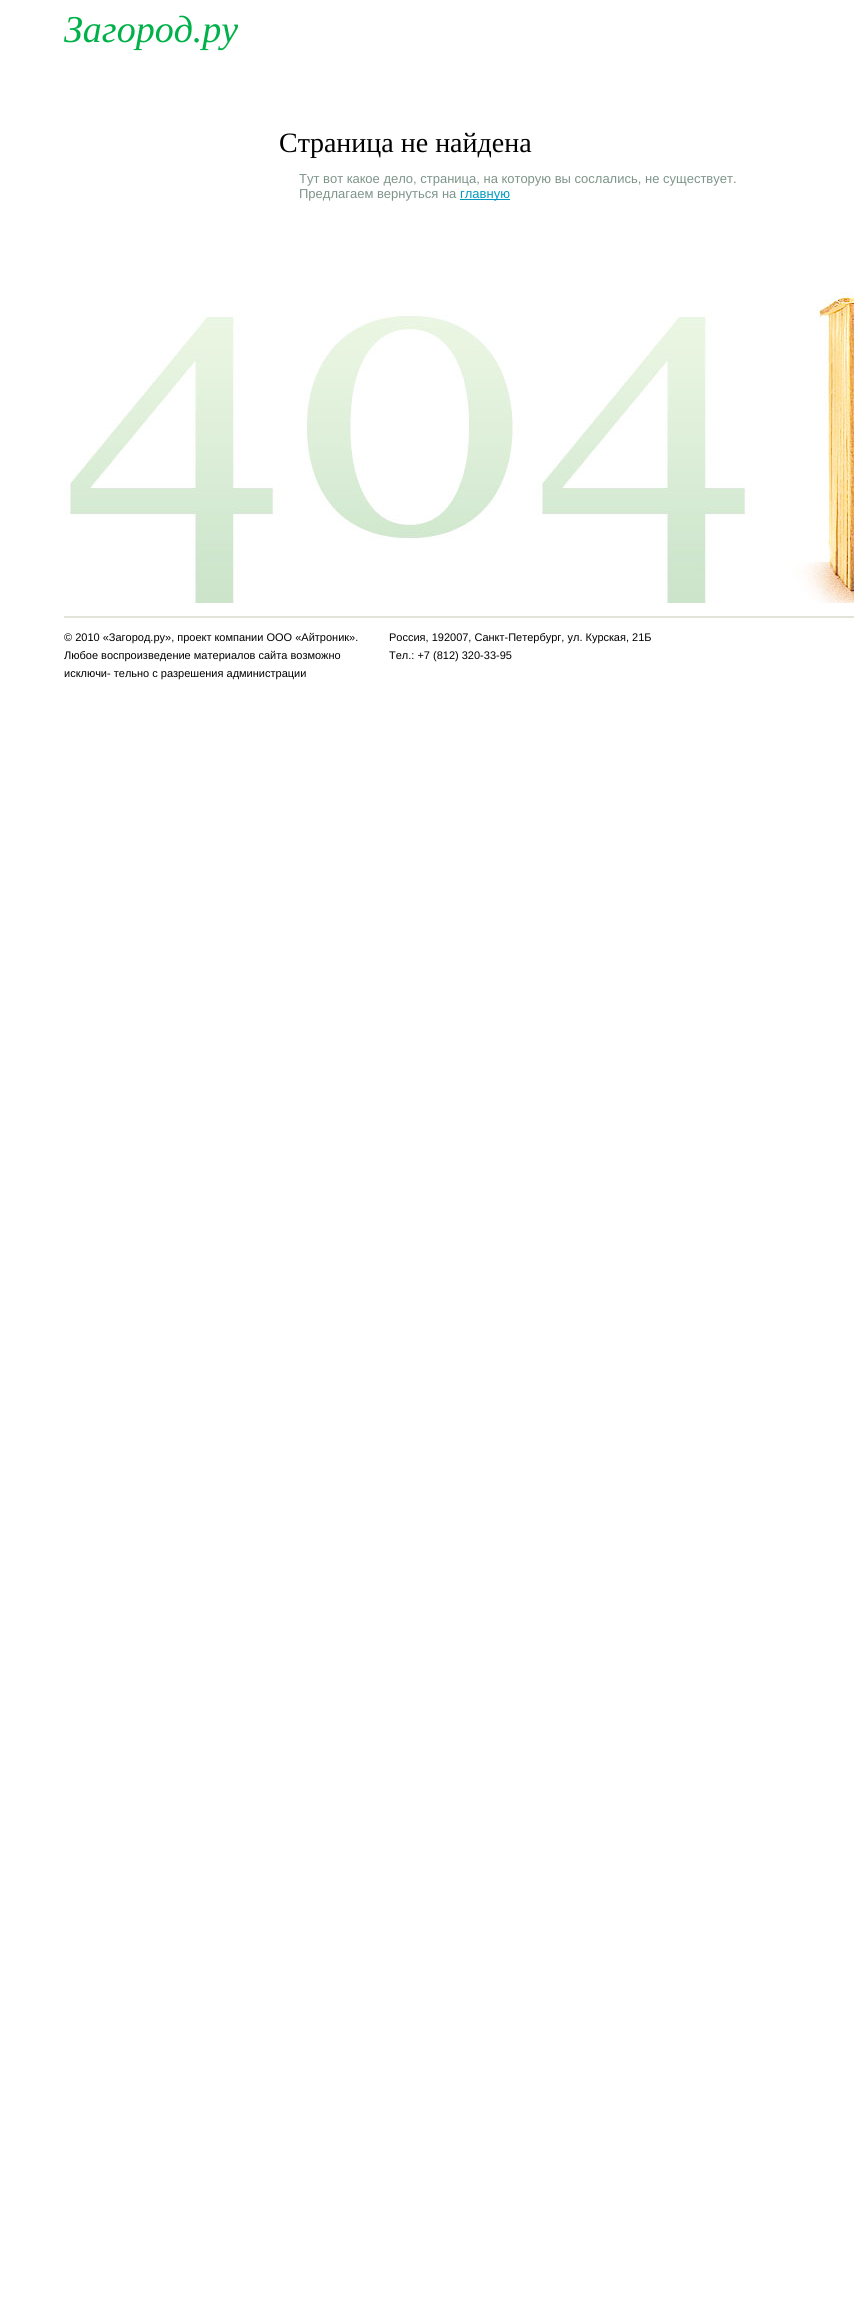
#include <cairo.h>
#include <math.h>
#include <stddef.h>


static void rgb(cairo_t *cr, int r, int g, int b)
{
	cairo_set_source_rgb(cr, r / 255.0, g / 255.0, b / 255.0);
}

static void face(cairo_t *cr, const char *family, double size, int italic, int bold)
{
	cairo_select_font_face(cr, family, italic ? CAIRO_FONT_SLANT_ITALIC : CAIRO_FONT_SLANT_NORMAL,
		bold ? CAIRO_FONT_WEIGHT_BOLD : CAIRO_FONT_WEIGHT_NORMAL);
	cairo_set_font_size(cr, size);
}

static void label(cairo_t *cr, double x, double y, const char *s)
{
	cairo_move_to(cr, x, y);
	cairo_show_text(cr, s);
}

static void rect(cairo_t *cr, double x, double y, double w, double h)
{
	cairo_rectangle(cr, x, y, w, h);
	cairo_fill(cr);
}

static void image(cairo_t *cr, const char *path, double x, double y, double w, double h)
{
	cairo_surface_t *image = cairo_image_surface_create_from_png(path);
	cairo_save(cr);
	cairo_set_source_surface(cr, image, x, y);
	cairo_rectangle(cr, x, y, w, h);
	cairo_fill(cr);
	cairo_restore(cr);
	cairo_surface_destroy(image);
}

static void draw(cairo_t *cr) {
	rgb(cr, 255, 255, 255);
	cairo_paint(cr);
	face(cr, "Liberation Serif", 38, 1, 0);
	rgb(cr, 0, 177, 73);
	label(cr, 64, 42, "Загород.ру");
	face(cr, "Liberation Serif", 28, 0, 0);
	rgb(cr, 0, 0, 0);
	label(cr, 279, 152, "Страница не найдена");
	face(cr, "Liberation Sans", 13, 0, 0);
	rgb(cr, 125, 148, 138);
	label(cr, 299, 183, "Тут вот какое дело, страница, на которую вы сослались, не существует.");
	label(cr, 299, 198, "Предлагаем вернуться на");
	rgb(cr, 0, 152, 193);
	rect(cr, 460, 199, 50, 1);
	label(cr, 460, 198, "главную");
	image(cr, "image0.png", 64, 291, 790, 312);
	rgb(cr, 225, 228, 216);
	rect(cr, 64, 616, 790, 2);
	face(cr, "Liberation Sans", 11, 0, 0);
	rgb(cr, 0, 0, 0);
	label(cr, 64, 641, "© 2010 «Загород.ру», проект компании ООО «Айтроник».");
	label(cr, 64, 659, "Любое воспроизведение материалов сайта возможно");
	label(cr, 64, 677, "исключи- тельно с разрешения администрации");
	label(cr, 389, 641, "Россия, 192007, Санкт-Петербург, ул. Курская, 21Б");
	label(cr, 389, 659, "Тел.: +7 (812) 320-33-95");
}

int main(void) {
	cairo_surface_t *surface = cairo_image_surface_create(CAIRO_FORMAT_RGB24, 854, 2302);
	cairo_t *cr = cairo_create(surface);
	cairo_font_options_t *options = cairo_font_options_create();
	cairo_font_options_set_hint_metrics(options, CAIRO_HINT_METRICS_OFF);
	cairo_font_options_set_hint_style(options, CAIRO_HINT_STYLE_NONE);
	cairo_set_font_options(cr, options);
	cairo_set_miter_limit(cr, 4);
	draw(cr);
	cairo_surface_write_to_png(surface, "render.png");
	cairo_font_options_destroy(options);
	cairo_destroy(cr);
	cairo_surface_destroy(surface);
	return 0;
}
